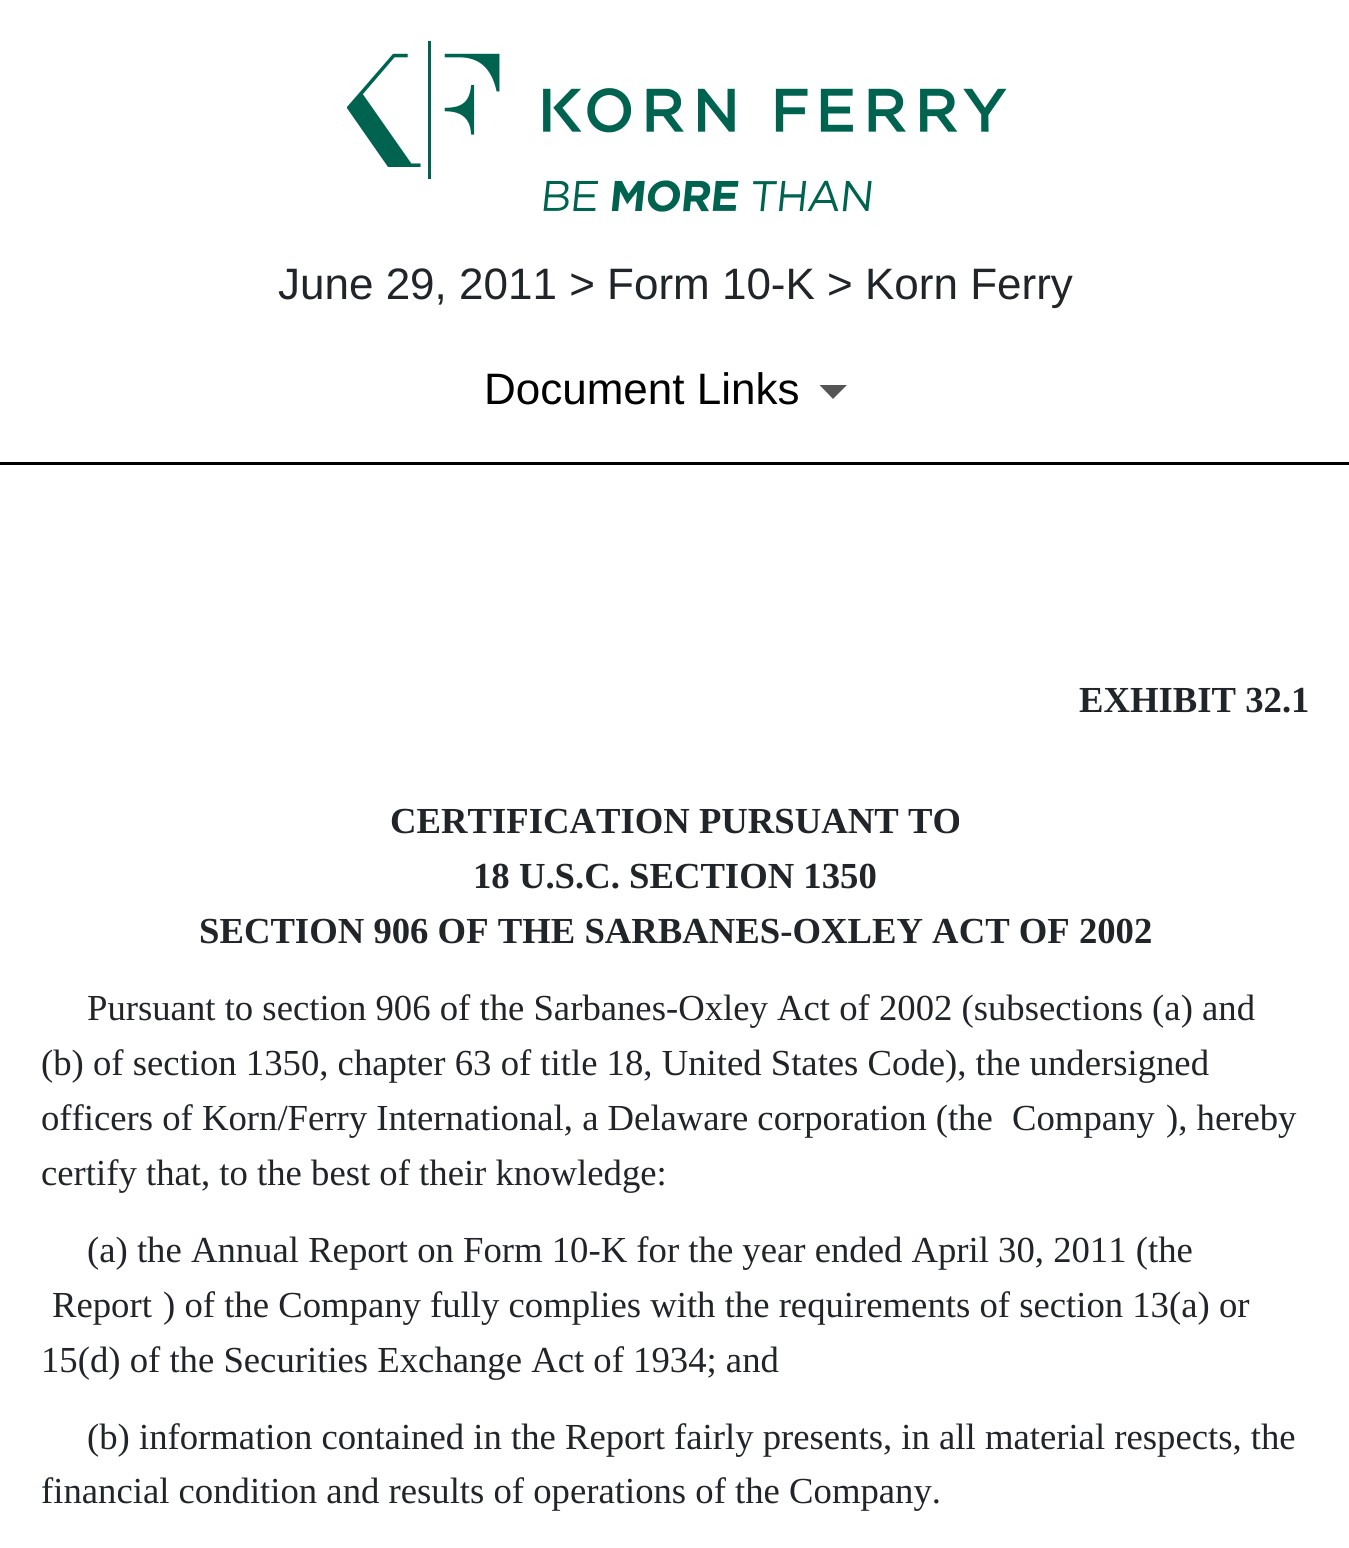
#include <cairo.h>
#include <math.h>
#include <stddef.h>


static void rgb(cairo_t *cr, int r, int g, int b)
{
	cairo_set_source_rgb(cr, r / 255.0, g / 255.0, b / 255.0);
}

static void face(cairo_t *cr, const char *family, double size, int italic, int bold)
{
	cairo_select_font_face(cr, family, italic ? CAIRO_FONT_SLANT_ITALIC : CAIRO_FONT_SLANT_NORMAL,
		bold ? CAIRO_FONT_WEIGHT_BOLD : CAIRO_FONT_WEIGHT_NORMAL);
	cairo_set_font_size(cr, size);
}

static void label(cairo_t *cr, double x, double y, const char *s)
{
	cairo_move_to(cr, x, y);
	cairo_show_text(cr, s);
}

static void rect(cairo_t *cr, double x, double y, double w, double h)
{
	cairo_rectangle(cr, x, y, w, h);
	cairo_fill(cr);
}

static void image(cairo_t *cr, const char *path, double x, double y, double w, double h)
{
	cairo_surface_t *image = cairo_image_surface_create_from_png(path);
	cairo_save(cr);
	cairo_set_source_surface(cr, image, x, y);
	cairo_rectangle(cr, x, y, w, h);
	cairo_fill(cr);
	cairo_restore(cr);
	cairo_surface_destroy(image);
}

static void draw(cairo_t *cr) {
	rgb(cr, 255, 255, 255);
	cairo_paint(cr);
	rgb(cr, 0, 0, 0);
	rect(cr, 0, 462, 1349, 3);
	image(cr, "image0.png", 347, 41, 660, 171);
	face(cr, "Liberation Sans", 44, 0, 0);
	rgb(cr, 33, 37, 41);
	label(cr, 278, 299, "June 29, 2011 > Form 10-K > Korn Ferry");
	rgb(cr, 0, 0, 0);
	label(cr, 484, 404, "Document Links");
	rgb(cr, 85, 85, 85);
	cairo_new_path(cr);
	cairo_move_to(cr, 819.5, 385);
	cairo_line_to(cr, 847, 385);
	cairo_line_to(cr, 833, 399);
	cairo_close_path(cr);
	cairo_fill(cr);
	face(cr, "Liberation Serif", 36.7, 0, 1);
	rgb(cr, 33, 37, 41);
	label(cr, 1079, 712, "EXHIBIT 32.1");
	label(cr, 390, 833, "CERTIFICATION PURSUANT TO");
	label(cr, 473, 888, "18 U.S.C. SECTION 1350");
	label(cr, 199, 943, "SECTION 906 OF THE SARBANES-OXLEY ACT OF 2002");
	face(cr, "Liberation Serif", 36.7, 0, 0);
	label(cr, 87, 1020, "Pursuant to section 906 of the Sarbanes-Oxley Act of 2002 (subsections (a) and");
	label(cr, 41, 1075, "(b) of section 1350, chapter 63 of title 18, United States Code), the undersigned");
	label(cr, 41, 1130, "officers of Korn/Ferry International, a Delaware corporation (the");
	label(cr, 1012, 1130, "Company");
	label(cr, 1166, 1130, "), hereby");
	label(cr, 41, 1185, "certify that, to the best of their knowledge:");
	label(cr, 87, 1262, "(a) the Annual Report on Form 10-K for the year ended April 30, 2011 (the");
	label(cr, 52, 1317, "Report");
	label(cr, 163, 1317, ") of the Company fully complies with the requirements of section 13(a) or");
	label(cr, 41, 1372, "15(d) of the Securities Exchange Act of 1934; and");
	label(cr, 87, 1449, "(b) information contained in the Report fairly presents, in all material respects, the");
	label(cr, 41, 1503, "financial condition and results of operations of the Company.");
}

int main(void) {
	cairo_surface_t *surface = cairo_image_surface_create(CAIRO_FORMAT_RGB24, 1349, 1548);
	cairo_t *cr = cairo_create(surface);
	cairo_font_options_t *options = cairo_font_options_create();
	cairo_font_options_set_hint_metrics(options, CAIRO_HINT_METRICS_OFF);
	cairo_font_options_set_hint_style(options, CAIRO_HINT_STYLE_NONE);
	cairo_set_font_options(cr, options);
	cairo_set_miter_limit(cr, 4);
	draw(cr);
	cairo_surface_write_to_png(surface, "render.png");
	cairo_font_options_destroy(options);
	cairo_destroy(cr);
	cairo_surface_destroy(surface);
	return 0;
}
